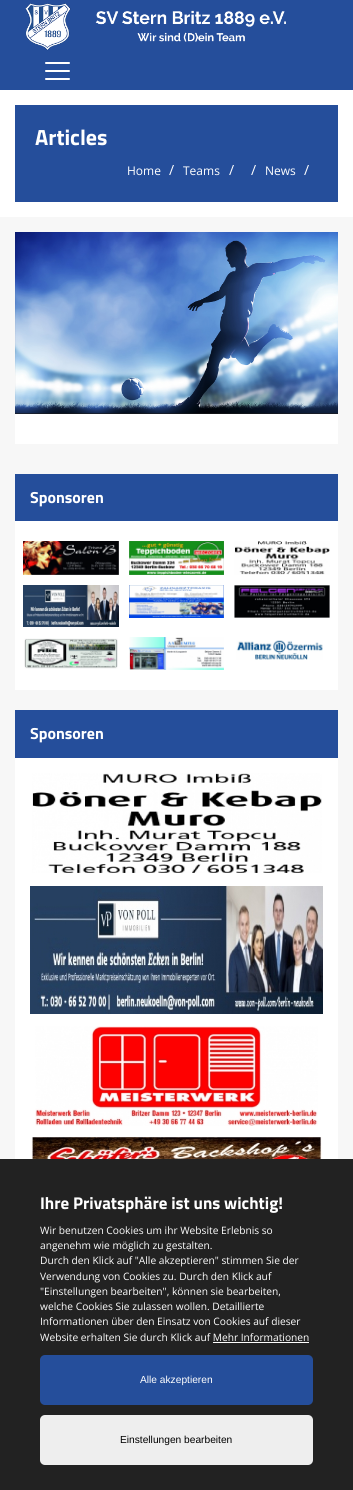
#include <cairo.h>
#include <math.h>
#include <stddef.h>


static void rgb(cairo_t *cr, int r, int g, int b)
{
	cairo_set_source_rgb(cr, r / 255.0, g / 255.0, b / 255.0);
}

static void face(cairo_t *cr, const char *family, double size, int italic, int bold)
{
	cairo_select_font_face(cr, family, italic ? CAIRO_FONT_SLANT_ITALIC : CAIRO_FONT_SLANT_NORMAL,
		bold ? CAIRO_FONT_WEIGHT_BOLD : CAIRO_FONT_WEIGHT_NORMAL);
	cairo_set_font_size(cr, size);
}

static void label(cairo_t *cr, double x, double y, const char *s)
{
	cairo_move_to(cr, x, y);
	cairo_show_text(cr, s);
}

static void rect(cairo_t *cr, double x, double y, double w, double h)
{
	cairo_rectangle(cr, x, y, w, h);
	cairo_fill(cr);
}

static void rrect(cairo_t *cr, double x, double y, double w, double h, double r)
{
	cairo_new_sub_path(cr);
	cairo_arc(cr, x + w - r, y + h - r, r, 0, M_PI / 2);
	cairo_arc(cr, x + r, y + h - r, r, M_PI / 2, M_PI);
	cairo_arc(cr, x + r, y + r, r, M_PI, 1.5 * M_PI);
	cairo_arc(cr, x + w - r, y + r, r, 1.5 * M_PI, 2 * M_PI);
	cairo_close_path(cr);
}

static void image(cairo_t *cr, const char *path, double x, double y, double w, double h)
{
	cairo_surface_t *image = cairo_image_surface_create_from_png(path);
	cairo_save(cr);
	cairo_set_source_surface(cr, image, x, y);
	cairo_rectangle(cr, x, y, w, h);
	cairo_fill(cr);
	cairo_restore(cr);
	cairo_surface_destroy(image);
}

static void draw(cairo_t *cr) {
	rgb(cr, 255, 255, 255);
	cairo_paint(cr);
	rgb(cr, 37, 78, 155);
	rect(cr, 0, 0, 353, 90);
	image(cr, "image0.png", 25, 3, 261, 48);
	rgb(cr, 255, 255, 255);
	rrect(cr, 45, 62, 25, 2, 1);
	cairo_fill(cr);
	rrect(cr, 45, 70, 25, 2, 1);
	cairo_fill(cr);
	rrect(cr, 45, 78, 25, 2, 1);
	cairo_fill(cr);
	rgb(cr, 37, 78, 155);
	rect(cr, 15, 105, 323, 97);
	face(cr, "Titillium Web", 22, 0, 1);
	rgb(cr, 255, 255, 255);
	label(cr, 35, 145, "Articles");
	face(cr, "Open Sans", 12, 0, 0);
	label(cr, 127, 175, "Home");
	face(cr, "Open Sans", 14, 0, 0);
	label(cr, 169, 175, "/");
	face(cr, "Open Sans", 12, 0, 0);
	label(cr, 183, 175, "Teams");
	face(cr, "Open Sans", 14, 0, 0);
	label(cr, 229, 175, "/");
	label(cr, 251, 175, "/");
	face(cr, "Open Sans", 12, 0, 0);
	label(cr, 265, 175, "News");
	face(cr, "Open Sans", 14, 0, 0);
	label(cr, 304, 175, "/");
	rgb(cr, 247, 247, 247);
	rect(cr, 0, 217, 353, 942);
	rgb(cr, 255, 255, 255);
	rect(cr, 15, 414, 323, 30);
	image(cr, "image1.png", 15, 232, 323, 182);
	rect(cr, 15, 521, 323, 169);
	rgb(cr, 37, 78, 155);
	rect(cr, 15, 474, 323, 47);
	face(cr, "Titillium Web", 16, 0, 1);
	rgb(cr, 255, 255, 255);
	label(cr, 30, 503, "Sponsoren");
	image(cr, "image2.png", 23, 541, 96, 34);
	image(cr, "image3.png", 129, 541, 95, 34);
	image(cr, "image4.png", 234, 541, 96, 34);
	image(cr, "image5.png", 23, 585, 96, 42);
	image(cr, "image6.png", 129, 585, 95, 33);
	image(cr, "image7.png", 234, 585, 96, 33);
	image(cr, "image8.png", 24, 638, 94, 31);
	image(cr, "image9.png", 129, 637, 95, 33);
	image(cr, "image10.png", 236, 640, 87, 20);
	rect(cr, 15, 758, 323, 401);
	rgb(cr, 37, 78, 155);
	rect(cr, 15, 710, 323, 48);
	rgb(cr, 255, 255, 255);
	label(cr, 30, 739, "Sponsoren");
	image(cr, "image11.png", 32, 773, 290, 100);
	image(cr, "image12.png", 30, 886, 293, 128);
	image(cr, "image13.png", 35, 1026, 283, 100);
	image(cr, "image14.png", 31, 1137, 291, 22);
	rgb(cr, 34, 34, 34);
	rect(cr, 0, 1159, 353, 331);
	face(cr, "Titillium Web", 17, 0, 1);
	rgb(cr, 255, 255, 255);
	label(cr, 40, 1209, "Ihre Privatsphäre ist uns wichtig!");
	face(cr, "Open Sans", 10.2, 0, 0);
	label(cr, 40, 1234, "Wir benutzen Cookies um ihr Website Erlebnis so");
	label(cr, 40, 1249, "angenehm wie möglich zu gestalten.");
	label(cr, 40, 1264, "Durch den Klick auf \"Alle akzeptieren\" stimmen Sie der");
	label(cr, 40, 1280, "Verwendung von Cookies zu. Durch den Klick auf");
	label(cr, 40, 1295, "\"Einstellungen bearbeiten\", können sie bearbeiten,");
	label(cr, 40, 1310, "welche Cookies Sie zulassen wollen. Detaillierte");
	label(cr, 40, 1325, "Informationen über den Einsatz von Cookies auf dieser");
	label(cr, 40, 1341, "Website erhalten Sie durch Klick auf Mehr Informationen");
	rect(cr, 213, 1342, 96, 1);
	rgb(cr, 37, 78, 155);
	rrect(cr, 40, 1355, 273, 50, 5);
	cairo_fill(cr);
	face(cr, "Liberation Sans", 10.2, 0, 0);
	rgb(cr, 255, 255, 255);
	label(cr, 140, 1383, "Alle akzeptieren");
	rgb(cr, 238, 238, 238);
	rrect(cr, 40, 1415, 273, 50, 5);
	cairo_fill(cr);
	rgb(cr, 0, 0, 0);
	label(cr, 120, 1443, "Einstellungen bearbeiten");
}

int main(void) {
	cairo_surface_t *surface = cairo_image_surface_create(CAIRO_FORMAT_RGB24, 353, 1490);
	cairo_t *cr = cairo_create(surface);
	cairo_font_options_t *options = cairo_font_options_create();
	cairo_font_options_set_hint_metrics(options, CAIRO_HINT_METRICS_OFF);
	cairo_font_options_set_hint_style(options, CAIRO_HINT_STYLE_NONE);
	cairo_set_font_options(cr, options);
	cairo_set_miter_limit(cr, 4);
	draw(cr);
	cairo_surface_write_to_png(surface, "render.png");
	cairo_font_options_destroy(options);
	cairo_destroy(cr);
	cairo_surface_destroy(surface);
	return 0;
}
